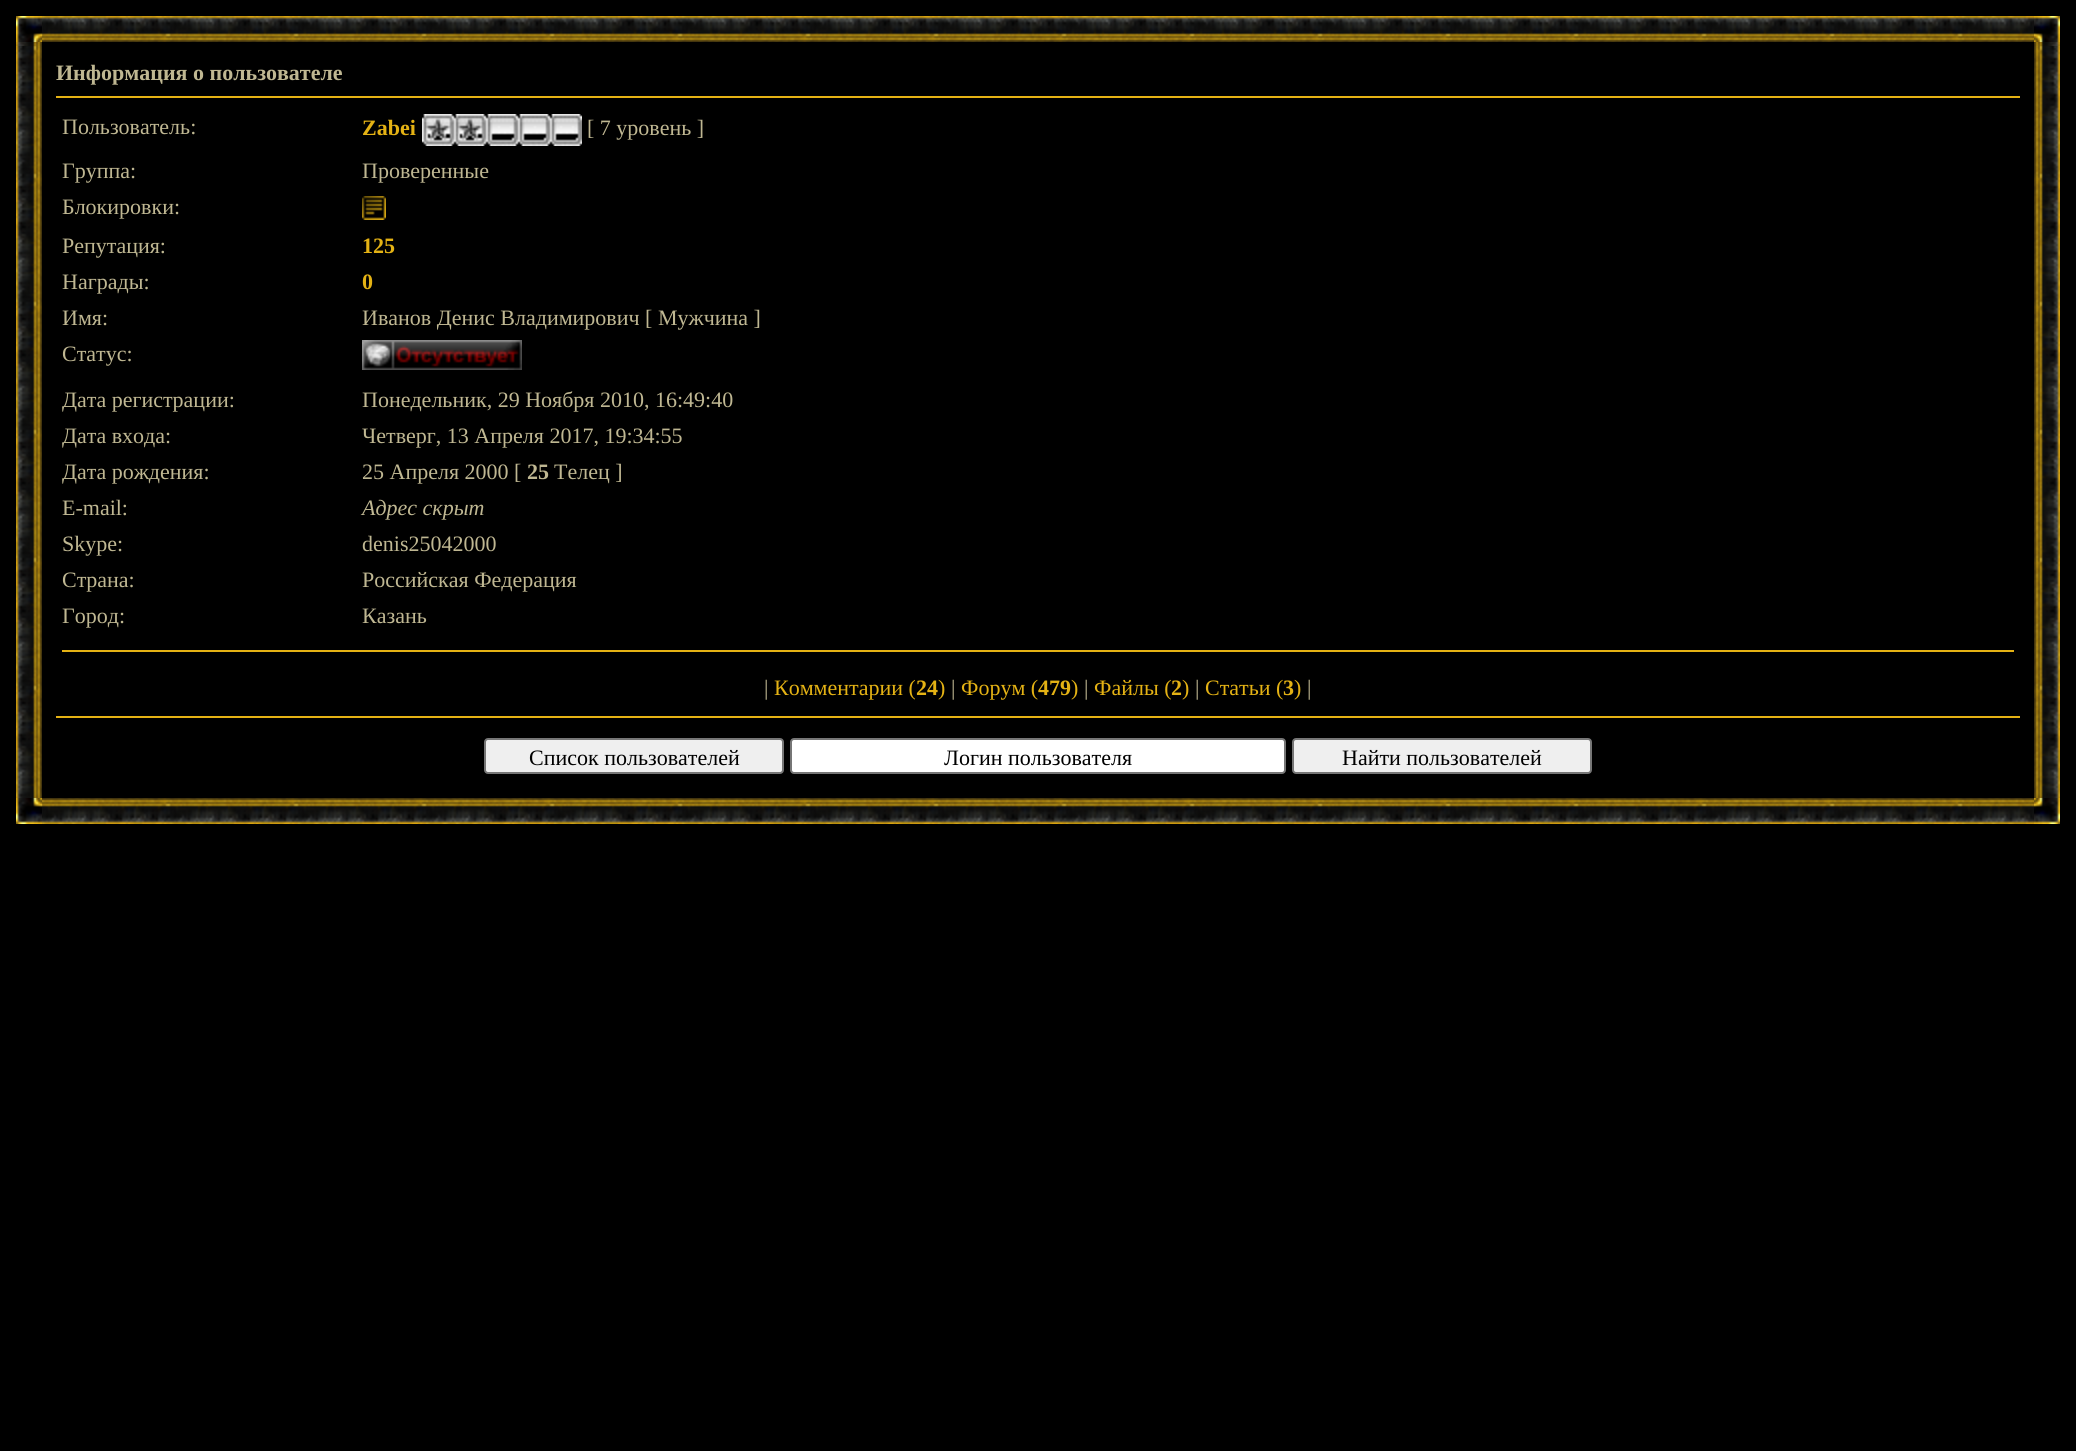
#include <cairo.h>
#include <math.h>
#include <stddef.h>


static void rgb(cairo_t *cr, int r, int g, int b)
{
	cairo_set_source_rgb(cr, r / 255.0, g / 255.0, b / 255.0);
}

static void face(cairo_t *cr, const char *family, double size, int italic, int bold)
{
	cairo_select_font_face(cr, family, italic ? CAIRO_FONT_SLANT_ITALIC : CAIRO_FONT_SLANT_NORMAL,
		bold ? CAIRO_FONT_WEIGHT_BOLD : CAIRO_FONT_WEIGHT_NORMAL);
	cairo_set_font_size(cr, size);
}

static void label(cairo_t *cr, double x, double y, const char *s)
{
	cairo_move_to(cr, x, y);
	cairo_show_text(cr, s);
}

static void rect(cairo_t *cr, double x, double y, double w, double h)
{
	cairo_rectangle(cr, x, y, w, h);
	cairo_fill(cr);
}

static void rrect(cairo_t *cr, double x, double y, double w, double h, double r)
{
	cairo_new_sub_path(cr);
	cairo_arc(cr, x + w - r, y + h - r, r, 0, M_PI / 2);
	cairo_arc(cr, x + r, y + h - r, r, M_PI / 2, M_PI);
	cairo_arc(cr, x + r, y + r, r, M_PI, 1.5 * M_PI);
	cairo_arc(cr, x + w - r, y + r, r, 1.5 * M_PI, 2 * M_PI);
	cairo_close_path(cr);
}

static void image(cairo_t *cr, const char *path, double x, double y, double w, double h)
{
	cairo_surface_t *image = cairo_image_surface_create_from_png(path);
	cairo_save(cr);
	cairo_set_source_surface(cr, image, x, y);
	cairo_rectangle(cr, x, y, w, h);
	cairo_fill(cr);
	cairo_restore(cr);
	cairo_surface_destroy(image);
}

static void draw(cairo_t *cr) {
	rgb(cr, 0, 0, 0);
	cairo_paint(cr);
	image(cr, "image0.png", 16, 42, 26, 4);
	image(cr, "image1.png", 16, 16, 26, 26);
	image(cr, "image2.png", 42, 16, 1992, 26);
	image(cr, "image3.png", 2034, 42, 26, 4);
	image(cr, "image4.png", 2034, 16, 26, 26);
	image(cr, "image5.png", 16, 46, 26, 752);
	face(cr, "Liberation Serif", 22, 0, 1);
	rgb(cr, 191, 183, 146);
	label(cr, 56, 80, "Информация о пользователе");
	rgb(cr, 228, 178, 20);
	rect(cr, 56, 96, 1964, 2);
	face(cr, "Liberation Serif", 22, 0, 0);
	rgb(cr, 191, 183, 146);
	label(cr, 62, 134, "Пользователь:");
	face(cr, "Liberation Serif", 22, 0, 1);
	rgb(cr, 228, 178, 20);
	label(cr, 362, 135, "Zabei");
	image(cr, "image6.png", 422, 114, 160, 32);
	face(cr, "Liberation Serif", 22, 0, 0);
	rgb(cr, 191, 183, 146);
	label(cr, 587, 135, "[ 7 уровень ]");
	label(cr, 62, 178, "Группа:");
	label(cr, 362, 178, "Проверенные");
	label(cr, 62, 214, "Блокировки:");
	image(cr, "image7.png", 362, 196, 24, 24);
	label(cr, 62, 253, "Репутация:");
	face(cr, "Liberation Serif", 22, 0, 1);
	rgb(cr, 228, 178, 20);
	label(cr, 362, 253, "125");
	face(cr, "Liberation Serif", 22, 0, 0);
	rgb(cr, 191, 183, 146);
	label(cr, 62, 289, "Награды:");
	face(cr, "Liberation Serif", 22, 0, 1);
	rgb(cr, 228, 178, 20);
	label(cr, 362, 289, "0");
	face(cr, "Liberation Serif", 22, 0, 0);
	rgb(cr, 191, 183, 146);
	label(cr, 62, 325, "Имя:");
	label(cr, 362, 325, "Иванов Денис Владимирович [ Мужчина ]");
	label(cr, 62, 361, "Статус:");
	image(cr, "image8.png", 362, 340, 160, 30);
	label(cr, 62, 407, "Дата регистрации:");
	label(cr, 362, 407, "Понедельник, 29 Ноября 2010, 16:49:40");
	label(cr, 62, 443, "Дата входа:");
	label(cr, 362, 443, "Четверг, 13 Апреля 2017, 19:34:55");
	label(cr, 62, 479, "Дата рождения:");
	label(cr, 362, 479, "25 Апреля 2000 [");
	face(cr, "Liberation Serif", 22, 0, 1);
	label(cr, 527, 479, "25");
	face(cr, "Liberation Serif", 22, 0, 0);
	label(cr, 554, 479, "Телец ]");
	label(cr, 62, 515, "E-mail:");
	face(cr, "Liberation Serif", 22, 1, 0);
	label(cr, 362, 515, "Адрес скрыт");
	face(cr, "Liberation Serif", 22, 0, 0);
	label(cr, 62, 551, "Skype:");
	label(cr, 362, 551, "denis25042000");
	label(cr, 62, 587, "Страна:");
	label(cr, 362, 587, "Российская Федерация");
	label(cr, 62, 623, "Город:");
	label(cr, 362, 623, "Казань");
	rgb(cr, 228, 178, 20);
	rect(cr, 62, 650, 1952, 2);
	rgb(cr, 191, 183, 146);
	label(cr, 764, 695, "|");
	rgb(cr, 228, 178, 20);
	label(cr, 774, 695, "Комментарии (");
	face(cr, "Liberation Serif", 22, 0, 1);
	label(cr, 916, 695, "24");
	face(cr, "Liberation Serif", 22, 0, 0);
	label(cr, 938, 695, ")");
	rgb(cr, 191, 183, 146);
	label(cr, 951, 695, "|");
	rgb(cr, 228, 178, 20);
	label(cr, 961, 695, "Форум (");
	face(cr, "Liberation Serif", 22, 0, 1);
	label(cr, 1038, 695, "479");
	face(cr, "Liberation Serif", 22, 0, 0);
	label(cr, 1071, 695, ")");
	rgb(cr, 191, 183, 146);
	label(cr, 1084, 695, "|");
	rgb(cr, 228, 178, 20);
	label(cr, 1094, 695, "Файлы (");
	face(cr, "Liberation Serif", 22, 0, 1);
	label(cr, 1171, 695, "2");
	face(cr, "Liberation Serif", 22, 0, 0);
	label(cr, 1182, 695, ")");
	rgb(cr, 191, 183, 146);
	label(cr, 1195, 695, "|");
	rgb(cr, 228, 178, 20);
	label(cr, 1205, 695, "Статьи (");
	face(cr, "Liberation Serif", 22, 0, 1);
	label(cr, 1283, 695, "3");
	face(cr, "Liberation Serif", 22, 0, 0);
	label(cr, 1294, 695, ")");
	rgb(cr, 191, 183, 146);
	label(cr, 1307, 695, "|");
	rgb(cr, 228, 178, 20);
	rect(cr, 56, 716, 1964, 2);
	rgb(cr, 239, 239, 239);
	rrect(cr, 485, 739, 298, 34, 3);
	cairo_fill_preserve(cr);
	rgb(cr, 118, 118, 118);
	cairo_stroke(cr);
	rgb(cr, 0, 0, 0);
	label(cr, 529, 765, "Список пользователей");
	rgb(cr, 255, 255, 255);
	rrect(cr, 791, 739, 494, 34, 3);
	cairo_fill_preserve(cr);
	rgb(cr, 118, 118, 118);
	cairo_stroke(cr);
	rgb(cr, 0, 0, 0);
	label(cr, 944, 765, "Логин пользователя");
	rgb(cr, 239, 239, 239);
	rrect(cr, 1293, 739, 298, 34, 3);
	cairo_fill_preserve(cr);
	rgb(cr, 118, 118, 118);
	cairo_stroke(cr);
	rgb(cr, 0, 0, 0);
	label(cr, 1342, 765, "Найти пользователей");
	image(cr, "image9.png", 2034, 46, 26, 752);
	image(cr, "image10.png", 16, 798, 26, 26);
	image(cr, "image11.png", 42, 798, 1992, 26);
	image(cr, "image12.png", 2034, 798, 26, 26);
}

int main(void) {
	cairo_surface_t *surface = cairo_image_surface_create(CAIRO_FORMAT_RGB24, 2076, 1451);
	cairo_t *cr = cairo_create(surface);
	cairo_font_options_t *options = cairo_font_options_create();
	cairo_font_options_set_hint_metrics(options, CAIRO_HINT_METRICS_OFF);
	cairo_font_options_set_hint_style(options, CAIRO_HINT_STYLE_NONE);
	cairo_set_font_options(cr, options);
	cairo_set_miter_limit(cr, 4);
	draw(cr);
	cairo_surface_write_to_png(surface, "render.png");
	cairo_font_options_destroy(options);
	cairo_destroy(cr);
	cairo_surface_destroy(surface);
	return 0;
}
